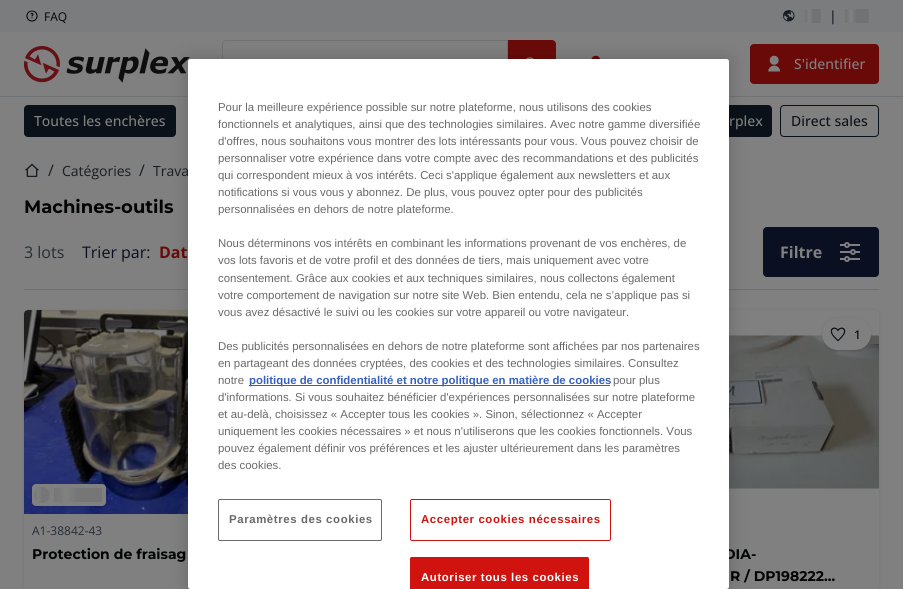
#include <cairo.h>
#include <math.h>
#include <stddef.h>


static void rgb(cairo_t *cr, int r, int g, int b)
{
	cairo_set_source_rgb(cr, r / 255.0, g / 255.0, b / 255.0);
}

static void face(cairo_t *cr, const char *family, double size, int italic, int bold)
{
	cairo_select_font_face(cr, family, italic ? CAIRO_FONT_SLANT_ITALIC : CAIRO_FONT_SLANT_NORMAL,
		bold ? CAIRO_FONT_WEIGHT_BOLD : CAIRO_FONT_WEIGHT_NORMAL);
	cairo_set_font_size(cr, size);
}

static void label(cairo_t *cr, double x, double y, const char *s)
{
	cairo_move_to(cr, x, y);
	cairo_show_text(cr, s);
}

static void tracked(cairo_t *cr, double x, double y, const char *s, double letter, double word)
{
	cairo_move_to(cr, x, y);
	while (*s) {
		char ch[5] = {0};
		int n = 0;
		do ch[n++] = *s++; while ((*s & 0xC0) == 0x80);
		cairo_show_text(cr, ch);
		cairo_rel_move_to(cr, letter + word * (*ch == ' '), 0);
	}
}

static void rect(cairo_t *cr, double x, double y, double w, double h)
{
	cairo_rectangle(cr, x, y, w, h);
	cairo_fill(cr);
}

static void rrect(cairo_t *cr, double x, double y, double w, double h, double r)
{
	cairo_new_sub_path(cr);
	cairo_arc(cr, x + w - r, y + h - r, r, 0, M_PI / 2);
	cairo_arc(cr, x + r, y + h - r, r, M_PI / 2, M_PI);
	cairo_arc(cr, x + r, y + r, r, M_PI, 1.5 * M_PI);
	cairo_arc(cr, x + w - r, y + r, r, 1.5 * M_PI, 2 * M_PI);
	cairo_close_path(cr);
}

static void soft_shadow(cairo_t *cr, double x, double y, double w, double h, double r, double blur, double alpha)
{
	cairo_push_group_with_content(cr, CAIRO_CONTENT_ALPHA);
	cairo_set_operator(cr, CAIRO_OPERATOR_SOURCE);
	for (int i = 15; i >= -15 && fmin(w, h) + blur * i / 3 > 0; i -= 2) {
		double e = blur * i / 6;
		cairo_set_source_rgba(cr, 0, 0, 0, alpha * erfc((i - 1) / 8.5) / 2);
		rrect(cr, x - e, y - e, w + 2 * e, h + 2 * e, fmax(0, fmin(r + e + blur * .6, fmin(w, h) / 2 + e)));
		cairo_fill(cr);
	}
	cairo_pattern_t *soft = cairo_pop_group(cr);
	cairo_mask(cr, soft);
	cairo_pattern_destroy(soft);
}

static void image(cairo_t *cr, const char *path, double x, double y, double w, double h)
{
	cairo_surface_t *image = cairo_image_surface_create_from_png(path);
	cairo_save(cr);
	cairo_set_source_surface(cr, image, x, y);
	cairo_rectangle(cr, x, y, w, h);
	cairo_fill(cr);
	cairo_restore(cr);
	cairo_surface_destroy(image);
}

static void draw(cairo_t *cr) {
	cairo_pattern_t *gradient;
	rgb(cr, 128, 128, 128);
	cairo_paint(cr);
	rgb(cr, 123, 124, 125);
	rect(cr, 0, 0, 903, 32);
	image(cr, "image0.png", 26, 10, 12, 12);
	face(cr, "Open Sans", 12, 0, 0);
	rgb(cr, 2, 4, 5);
	label(cr, 44, 21, "FAQ");
	image(cr, "image1.png", 782, 10, 13, 12);
	rgb(cr, 113, 114, 115);
	rect(cr, 813, 9, 8, 14);
	gradient = cairo_pattern_create_linear(805, 16, 809, 16);
	cairo_pattern_add_color_stop_rgba(gradient, 0, 0.443, 0.447, 0.451, 1);
	cairo_pattern_add_color_stop_rgba(gradient, 1, 0.502, 0.502, 0.502, 1);
	cairo_set_source(cr, gradient);
	cairo_pattern_destroy(gradient);
	rect(cr, 805, 9, 4, 14);
	gradient = cairo_pattern_create_linear(809, 16, 813, 16);
	cairo_pattern_add_color_stop_rgba(gradient, 0, 0.502, 0.502, 0.502, 1);
	cairo_pattern_add_color_stop_rgba(gradient, 1, 0.443, 0.447, 0.451, 1);
	cairo_set_source(cr, gradient);
	cairo_pattern_destroy(gradient);
	rect(cr, 809, 9, 4, 14);
	face(cr, "Open Sans Medium", 14, 0, 0);
	rgb(cr, 23, 29, 36);
	label(cr, 829, 21, "|");
	rgb(cr, 113, 114, 115);
	rect(cr, 857, 9, 12, 14);
	gradient = cairo_pattern_create_linear(845, 16, 851, 16);
	cairo_pattern_add_color_stop_rgba(gradient, 0, 0.443, 0.447, 0.451, 1);
	cairo_pattern_add_color_stop_rgba(gradient, 1, 0.502, 0.502, 0.502, 1);
	cairo_set_source(cr, gradient);
	cairo_pattern_destroy(gradient);
	rect(cr, 845, 9, 6, 14);
	gradient = cairo_pattern_create_linear(851, 16, 857, 16);
	cairo_pattern_add_color_stop_rgba(gradient, 0, 0.502, 0.502, 0.502, 1);
	cairo_pattern_add_color_stop_rgba(gradient, 1, 0.443, 0.447, 0.451, 1);
	cairo_set_source(cr, gradient);
	cairo_pattern_destroy(gradient);
	rect(cr, 851, 9, 6, 14);
	rgb(cr, 112, 115, 118);
	rect(cr, 0, 96, 903, 1);
	image(cr, "image2.png", 24, 46, 166, 37);
	cairo_new_path(cr);
	cairo_move_to(cr, 226, 40.5);
	cairo_line_to(cr, 507.5, 40.5);
	cairo_line_to(cr, 507.5, 87.5);
	cairo_line_to(cr, 226, 87.5);
	cairo_curve_to(cr, 224, 87.5, 222.5, 86, 222.5, 84);
	cairo_line_to(cr, 222.5, 44);
	cairo_curve_to(cr, 222.5, 42, 224, 40.5, 226, 40.5);
	cairo_close_path(cr);
	cairo_set_line_width(cr, 1);
	cairo_stroke(cr);
	rgb(cr, 105, 10, 8);
	cairo_new_path(cr);
	cairo_move_to(cr, 508, 40);
	cairo_line_to(cr, 552, 40);
	cairo_curve_to(cr, 554, 40, 556, 42, 556, 44);
	cairo_line_to(cr, 556, 84);
	cairo_curve_to(cr, 556, 86, 554, 88, 552, 88);
	cairo_line_to(cr, 508, 88);
	cairo_close_path(cr);
	cairo_fill(cr);
	image(cr, "image3.png", 526, 57, 8, 2);
	image(cr, "image4.png", 591, 55, 9, 4);
	rrect(cr, 750, 44, 129, 40, 4);
	cairo_fill(cr);
	image(cr, "image5.png", 768, 55, 13, 17);
	rgb(cr, 128, 128, 128);
	label(cr, 794, 69, "S'identifier");
	rgb(cr, 11, 17, 24);
	rrect(cr, 24, 105, 152, 32, 4);
	cairo_fill(cr);
	rgb(cr, 128, 128, 128);
	label(cr, 34, 126, "Toutes les enchères");
	rgb(cr, 11, 17, 24);
	rrect(cr, 617, 105, 155, 32, 4);
	cairo_fill(cr);
	rgb(cr, 128, 128, 128);
	label(cr, 729, 126, "rplex");
	rrect(cr, 780.5, 105.5, 98, 31, 3.5);
	rgb(cr, 11, 17, 24);
	cairo_stroke(cr);
	label(cr, 791, 126, "Direct sales");
	image(cr, "image6.png", 24, 163, 16, 14);
	face(cr, "Open Sans", 16, 0, 0);
	rgb(cr, 23, 29, 36);
	label(cr, 48, 176, "/");
	face(cr, "Open Sans", 14, 0, 0);
	label(cr, 62, 176, "Catégories");
	face(cr, "Open Sans", 16, 0, 0);
	label(cr, 139, 176, "/");
	face(cr, "Open Sans", 14, 0, 0);
	label(cr, 153, 176, "Trava");
	face(cr, "Montserrat", 18, 0, 1);
	rgb(cr, 2, 4, 5);
	label(cr, 24, 213, "Machines-outils");
	rgb(cr, 112, 112, 112);
	rect(cr, 24, 289, 855, 1);
	face(cr, "Open Sans", 16, 0, 0);
	rgb(cr, 38, 45, 55);
	label(cr, 24, 258, "3 lots");
	rgb(cr, 10, 15, 33);
	label(cr, 82, 258, "Trier par:");
	face(cr, "Open Sans", 16, 0, 1);
	rgb(cr, 105, 10, 8);
	label(cr, 159, 258, "Dat");
	rgb(cr, 10, 15, 33);
	rrect(cr, 763.5, 227.5, 115, 49, 3.5);
	cairo_fill_preserve(cr);
	cairo_stroke(cr);
	rgb(cr, 128, 128, 128);
	label(cr, 780, 258, "Filtre");
	image(cr, "image7.png", 840, 242, 20, 20);
	rgb(cr, 0, 0, 0);
	soft_shadow(cr, 24, 311, 272, 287, 4, 1.5, 0.1);
	rgb(cr, 128, 128, 128);
	rrect(cr, 24, 310, 272, 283, 4);
	cairo_fill(cr);
	image(cr, "image8.png", 24, 310, 164, 204);
	rgb(cr, 0, 0, 0);
	soft_shadow(cr, 32, 485, 74, 22, 4, 1.5, 0.1);
	soft_shadow(cr, 33, 486, 72, 20, 3, 1, 0.1);
	rgb(cr, 128, 128, 128);
	rrect(cr, 32, 484, 74, 22, 4);
	cairo_fill(cr);
	rgb(cr, 118, 118, 118);
	cairo_arc(cr, 42, 495, 8, 0, 2 * M_PI);
	cairo_fill(cr);
	cairo_save(cr);
	rrect(cr, 34, 487, 16, 16, 8);
	cairo_clip(cr);
	gradient = cairo_pattern_create_linear(34, 495, 38, 495);
	cairo_pattern_add_color_stop_rgba(gradient, 0, 0.502, 0.502, 0.502, 0);
	cairo_pattern_add_color_stop_rgba(gradient, 1, 0.502, 0.502, 0.502, 1);
	cairo_set_source(cr, gradient);
	cairo_pattern_destroy(gradient);
	rect(cr, 34, 487, 4, 16);
	gradient = cairo_pattern_create_linear(38, 495, 42, 495);
	cairo_pattern_add_color_stop_rgba(gradient, 0, 0.502, 0.502, 0.502, 1);
	cairo_pattern_add_color_stop_rgba(gradient, 1, 0.502, 0.502, 0.502, 0);
	cairo_set_source(cr, gradient);
	cairo_pattern_destroy(gradient);
	rect(cr, 38, 487, 4, 16);
	cairo_restore(cr);
	rect(cr, 78, 488, 24, 14);
	gradient = cairo_pattern_create_linear(54, 495, 66, 495);
	cairo_pattern_add_color_stop_rgba(gradient, 0, 0.463, 0.463, 0.463, 1);
	cairo_pattern_add_color_stop_rgba(gradient, 1, 0.502, 0.502, 0.502, 1);
	cairo_set_source(cr, gradient);
	cairo_pattern_destroy(gradient);
	rect(cr, 54, 488, 9, 14);
	gradient = cairo_pattern_create_linear(66, 495, 78, 495);
	cairo_pattern_add_color_stop_rgba(gradient, 0, 0.502, 0.502, 0.502, 1);
	cairo_pattern_add_color_stop_rgba(gradient, 1, 0.463, 0.463, 0.463, 1);
	cairo_set_source(cr, gradient);
	cairo_pattern_destroy(gradient);
	rect(cr, 69, 488, 9, 14);
	face(cr, "Open Sans", 12, 0, 0);
	rgb(cr, 38, 45, 55);
	label(cr, 32, 535, "A1-38842-43");
	face(cr, "Montserrat", 14, 0, 1);
	rgb(cr, 2, 4, 5);
	label(cr, 32, 559, "Protection de fraisag");
	rgb(cr, 0, 0, 0);
	soft_shadow(cr, 607, 311, 272, 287, 4, 1.5, 0.1);
	rgb(cr, 128, 128, 128);
	rrect(cr, 607, 310, 272, 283, 4);
	cairo_fill(cr);
	image(cr, "image10.png", 729, 335, 150, 154);
	rgb(cr, 0, 0, 0);
	soft_shadow(cr, 822, 319, 49, 32, 16, 1.5, 0.1);
	soft_shadow(cr, 823, 320, 47, 30, 15, 1, 0.1);
	rgb(cr, 128, 128, 128);
	rrect(cr, 822, 318, 49, 32, 16);
	cairo_fill(cr);
	image(cr, "image9.png", 830, 327, 16, 15);
	face(cr, "Open Sans Medium", 12, 0, 0);
	rgb(cr, 2, 4, 5);
	label(cr, 854, 339, "1");
	face(cr, "Montserrat", 14, 0, 1);
	label(cr, 724, 559, "DIA-");
	label(cr, 730, 581, "R / DP198222…");
	rgb(cr, 0, 0, 0);
	soft_shadow(cr, 188, 59, 541, 530, 2.5, 9, 0.2);
	rgb(cr, 255, 255, 255);
	rrect(cr, 188, 59, 541, 530, 2.5);
	cairo_fill(cr);
	face(cr, "Liberation Sans", 11.4, 0, 0);
	rgb(cr, 105, 105, 105);
	label(cr, 218, 111, "Pour la meilleure expérience possible sur notre plateforme, nous utilisons des cookies");
	label(cr, 218, 128, "fonctionnels et analytiques, ainsi que des technologies similaires. Avec notre gamme diversifiée");
	label(cr, 218, 145, "d'offres, nous souhaitons vous montrer des lots intéressants pour vous. Vous pouvez choisir de");
	label(cr, 218, 162, "personnaliser votre expérience dans votre compte avec des recommandations et des publicités");
	label(cr, 218, 179, "qui correspondent mieux à vos intérêts. Ceci s'applique également aux newsletters et aux");
	label(cr, 218, 196, "notifications si vous vous y abonnez. De plus, vous pouvez opter pour des publicités");
	label(cr, 218, 213, "personnalisées en dehors de notre plateforme.");
	label(cr, 218, 247, "Nous déterminons vos intérêts en combinant les informations provenant de vos enchères, de");
	label(cr, 218, 264, "vos lots favoris et de votre profil et des données de tiers, mais uniquement avec votre");
	label(cr, 218, 282, "consentement. Grâce aux cookies et aux techniques similaires, nous collectons également");
	label(cr, 218, 299, "votre comportement de navigation sur notre site Web. Bien entendu, cela ne s’applique pas si");
	label(cr, 218, 316, "vous avez désactivé le suivi ou les cookies sur votre appareil ou votre navigateur.");
	label(cr, 218, 350, "Des publicités personnalisées en dehors de notre plateforme sont affichées par nos partenaires");
	label(cr, 218, 367, "en partageant des données cryptées, des cookies et des technologies similaires. Consultez");
	label(cr, 218, 384, "notre");
	rgb(cr, 56, 96, 190);
	rect(cr, 249, 385, 361, 1);
	face(cr, "Liberation Sans", 11.4, 0, 1);
	label(cr, 249, 384, "politique de confidentialité et notre politique en matière de cookies");
	face(cr, "Liberation Sans", 11.4, 0, 0);
	rgb(cr, 105, 105, 105);
	label(cr, 613, 384, "pour plus");
	label(cr, 218, 401, "d'informations. Si vous souhaitez bénéficier d'expériences personnalisées sur notre plateforme");
	label(cr, 218, 418, "et au-delà, choisissez « Accepter tous les cookies ». Sinon, sélectionnez « Accepter");
	label(cr, 218, 435, "uniquement les cookies nécessaires » et nous n'utiliserons que les cookies fonctionnels. Vous");
	label(cr, 218, 452, "pouvez également définir vos préférences et les ajuster ultérieurement dans les paramètres");
	label(cr, 218, 469, "des cookies.");
	rrect(cr, 218.5, 499.5, 163, 41, 1.5);
	cairo_stroke(cr);
	face(cr, "Liberation Sans", 11.4, 0, 1);
	tracked(cr, 229, 523, "Paramètres des cookies", 0.6, 0);
	rrect(cr, 410.5, 499.5, 200, 41, 1.5);
	rgb(cr, 209, 19, 15);
	cairo_stroke(cr);
	tracked(cr, 421, 523, "Accepter cookies nécessaires", 0.6, 0);
	cairo_new_path(cr);
	cairo_move_to(cr, 412, 557);
	cairo_line_to(cr, 587, 557);
	cairo_curve_to(cr, 588, 557, 589, 558, 589, 559);
	cairo_line_to(cr, 589, 589);
	cairo_line_to(cr, 410, 589);
	cairo_line_to(cr, 410, 559);
	cairo_curve_to(cr, 410, 558, 411, 557, 412, 557);
	cairo_close_path(cr);
	cairo_fill(cr);
	cairo_new_path(cr);
	cairo_move_to(cr, 412, 557);
	cairo_curve_to(cr, 411, 557, 410, 558, 410, 559);
	cairo_line_to(cr, 410, 589);
	cairo_line_to(cr, 411, 589);
	cairo_line_to(cr, 411, 559);
	cairo_curve_to(cr, 411, 558, 411, 558, 412, 558);
	cairo_line_to(cr, 587, 558);
	cairo_curve_to(cr, 588, 558, 588, 558, 588, 559);
	cairo_line_to(cr, 588, 589);
	cairo_line_to(cr, 589, 589);
	cairo_line_to(cr, 589, 559);
	cairo_curve_to(cr, 589, 558, 588, 557, 587, 557);
	cairo_close_path(cr);
	cairo_fill(cr);
	rgb(cr, 255, 255, 255);
	tracked(cr, 421, 581, "Autoriser tous les cookies", 0.6, 0);
}

int main(void) {
	cairo_surface_t *surface = cairo_image_surface_create(CAIRO_FORMAT_RGB24, 903, 589);
	cairo_t *cr = cairo_create(surface);
	cairo_font_options_t *options = cairo_font_options_create();
	cairo_font_options_set_hint_metrics(options, CAIRO_HINT_METRICS_OFF);
	cairo_font_options_set_hint_style(options, CAIRO_HINT_STYLE_NONE);
	cairo_set_font_options(cr, options);
	cairo_set_miter_limit(cr, 4);
	draw(cr);
	cairo_surface_write_to_png(surface, "render.png");
	cairo_font_options_destroy(options);
	cairo_destroy(cr);
	cairo_surface_destroy(surface);
	return 0;
}
